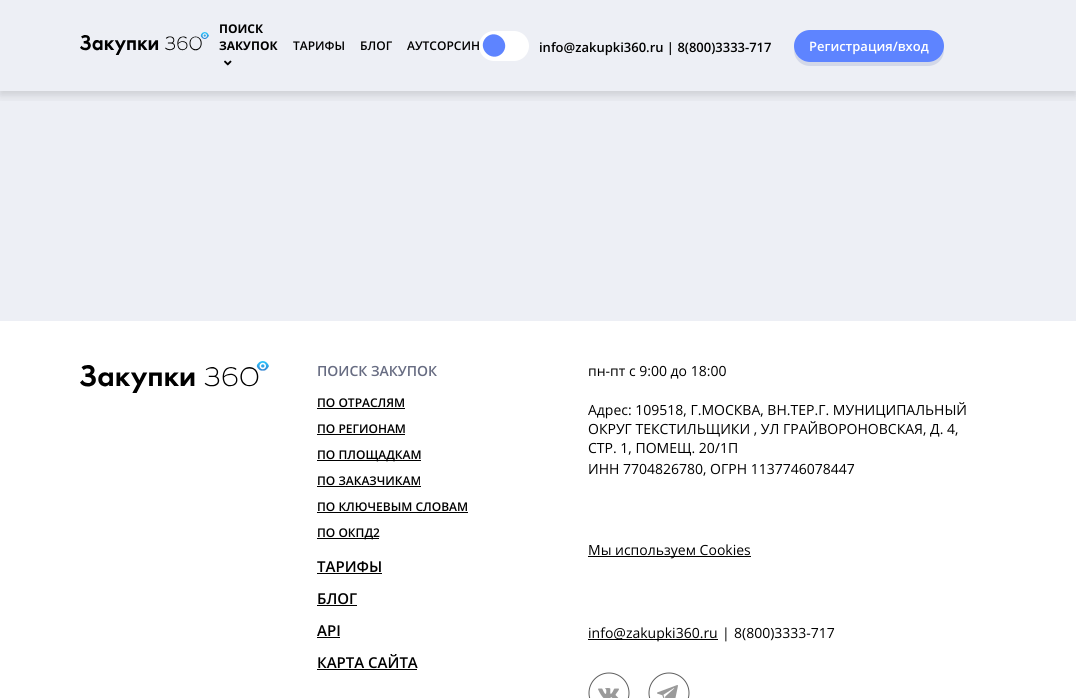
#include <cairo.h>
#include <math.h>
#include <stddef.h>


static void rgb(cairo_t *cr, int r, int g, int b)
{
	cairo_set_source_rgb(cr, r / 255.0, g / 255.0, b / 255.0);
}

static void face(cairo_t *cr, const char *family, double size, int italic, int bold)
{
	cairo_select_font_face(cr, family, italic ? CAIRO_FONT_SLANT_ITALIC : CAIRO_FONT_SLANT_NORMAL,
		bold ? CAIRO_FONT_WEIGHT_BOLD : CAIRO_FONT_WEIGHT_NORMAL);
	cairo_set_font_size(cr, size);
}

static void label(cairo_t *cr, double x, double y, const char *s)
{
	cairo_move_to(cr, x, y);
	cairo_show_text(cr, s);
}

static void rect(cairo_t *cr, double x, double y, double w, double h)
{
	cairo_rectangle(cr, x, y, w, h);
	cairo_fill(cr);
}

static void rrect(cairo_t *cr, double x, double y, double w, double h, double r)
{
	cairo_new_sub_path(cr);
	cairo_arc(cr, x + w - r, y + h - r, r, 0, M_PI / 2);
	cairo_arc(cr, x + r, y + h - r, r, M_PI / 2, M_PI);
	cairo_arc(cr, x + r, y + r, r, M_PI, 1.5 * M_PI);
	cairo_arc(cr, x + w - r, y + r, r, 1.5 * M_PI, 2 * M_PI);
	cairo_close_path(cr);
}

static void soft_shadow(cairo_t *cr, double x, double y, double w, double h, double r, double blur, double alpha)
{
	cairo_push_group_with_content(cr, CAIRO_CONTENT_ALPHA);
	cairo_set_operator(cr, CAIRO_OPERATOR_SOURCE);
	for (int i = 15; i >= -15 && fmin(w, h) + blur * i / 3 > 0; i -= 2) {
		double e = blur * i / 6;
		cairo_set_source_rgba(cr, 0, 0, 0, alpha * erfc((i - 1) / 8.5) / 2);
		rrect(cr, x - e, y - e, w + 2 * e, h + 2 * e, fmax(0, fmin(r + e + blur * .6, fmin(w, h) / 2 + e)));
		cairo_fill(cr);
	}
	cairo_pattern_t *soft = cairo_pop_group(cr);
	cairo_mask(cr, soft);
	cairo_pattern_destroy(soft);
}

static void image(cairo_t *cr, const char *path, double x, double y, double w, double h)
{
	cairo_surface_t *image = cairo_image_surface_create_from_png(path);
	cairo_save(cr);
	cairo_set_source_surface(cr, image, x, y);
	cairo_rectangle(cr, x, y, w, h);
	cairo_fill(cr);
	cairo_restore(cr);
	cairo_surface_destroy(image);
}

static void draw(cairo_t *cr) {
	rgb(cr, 237, 239, 245);
	cairo_paint(cr);
	cairo_save(cr);
	cairo_rectangle(cr, 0, 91, 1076, 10);
	cairo_clip(cr);
	rgb(cr, 0, 0, 0);
	soft_shadow(cr, 0, 4, 1076, 91, 0, 5, 0.15);
	cairo_restore(cr);
	image(cr, "image0.png", 80, 32, 129, 23);
	face(cr, "Open Sans", 12, 0, 1);
	rgb(cr, 0, 0, 0);
	label(cr, 219, 33, "ПОИСК");
	label(cr, 219, 50, "ЗАКУПОК");
	image(cr, "image1.png", 224, 60, 8, 6);
	face(cr, "Open Sans SemiBold", 12, 0, 0);
	label(cr, 293, 50, "ТАРИФЫ");
	label(cr, 360, 50, "БЛОГ");
	label(cr, 407, 50, "АУТСОРСИН");
	rgb(cr, 255, 255, 255);
	rrect(cr, 479, 31, 50, 30, 15);
	cairo_fill(cr);
	rgb(cr, 94, 132, 255);
	cairo_new_path(cr);
	cairo_move_to(cr, 486, 37.5);
	cairo_curve_to(cr, 496.5, 27.5, 512, 43, 502, 53.5);
	cairo_curve_to(cr, 491.5, 63.5, 476, 48, 486, 37.5);
	cairo_close_path(cr);
	cairo_fill(cr);
	face(cr, "Open Sans SemiBold", 13, 0, 0);
	rgb(cr, 0, 0, 0);
	label(cr, 539, 52, "info@zakupki360.ru | 8(800)3333-717");
	rgb(cr, 211, 216, 232);
	cairo_new_path(cr);
	cairo_move_to(cr, 794, 48);
	cairo_line_to(cr, 794, 50);
	cairo_curve_to(cr, 794, 59, 801, 66, 810, 66);
	cairo_line_to(cr, 928, 66);
	cairo_curve_to(cr, 937, 66, 944, 59, 944, 50);
	cairo_line_to(cr, 944, 48);
	cairo_curve_to(cr, 943, 56, 936, 62, 928, 62);
	cairo_line_to(cr, 810, 62);
	cairo_curve_to(cr, 802, 62, 795, 56, 794, 48);
	cairo_close_path(cr);
	cairo_fill(cr);
	rgb(cr, 94, 132, 255);
	rrect(cr, 794, 30, 150, 32, 16);
	cairo_fill(cr);
	rgb(cr, 255, 255, 255);
	label(cr, 809, 51, "Регистрация/вход");
	rect(cr, 0, 321, 1076, 377);
	image(cr, "image2.png", 80, 361, 189, 32);
	face(cr, "Open Sans SemiBold", 14, 0, 0);
	rgb(cr, 103, 108, 130);
	label(cr, 317, 376, "ПОИСК ЗАКУПОК");
	face(cr, "Open Sans SemiBold", 12, 0, 0);
	rgb(cr, 0, 0, 0);
	label(cr, 317, 407, "ПО ОТРАСЛЯМ");
	rect(cr, 317, 408, 88, 1);
	label(cr, 317, 433, "ПО РЕГИОНАМ");
	rect(cr, 317, 434, 88, 1);
	rect(cr, 317, 460, 104, 1);
	label(cr, 317, 459, "ПО ПЛОЩАДКАМ");
	label(cr, 317, 485, "ПО ЗАКАЗЧИКАМ");
	rect(cr, 317, 486, 104, 1);
	label(cr, 317, 511, "ПО КЛЮЧЕВЫМ СЛОВАМ");
	rect(cr, 317, 512, 151, 1);
	rect(cr, 317, 538, 62, 1);
	label(cr, 317, 537, "ПО ОКПД2");
	face(cr, "Open Sans SemiBold", 15, 0, 0);
	label(cr, 317, 572, "ТАРИФЫ");
	rect(cr, 317, 573, 65, 1);
	label(cr, 317, 604, "БЛОГ");
	rect(cr, 317, 605, 40, 1);
	label(cr, 317, 636, "API");
	rect(cr, 317, 637, 23, 1);
	label(cr, 317, 668, "КАРТА САЙТА");
	rect(cr, 317, 669, 100, 1);
	face(cr, "Open Sans", 14, 0, 0);
	label(cr, 588, 376, "пн-пт с 9:00 до 18:00");
	label(cr, 588, 415, "Адрес: 109518, Г.МОСКВА, ВН.ТЕР.Г. МУНИЦИПАЛЬНЫЙ");
	label(cr, 588, 434, "ОКРУГ ТЕКСТИЛЬЩИКИ , УЛ ГРАЙВОРОНОВСКАЯ, Д. 4,");
	label(cr, 588, 453, "СТР. 1, ПОМЕЩ. 20/1П");
	label(cr, 588, 474, "ИНН 7704826780, ОГРН 1137746078447");
	rect(cr, 588, 556, 163, 1);
	label(cr, 588, 555, "Мы используем Cookies");
	rect(cr, 588, 639, 130, 1);
	label(cr, 588, 638, "info@zakupki360.ru");
	label(cr, 722, 638, "|");
	label(cr, 734, 638, "8(800)3333-717");
	image(cr, "image3.png", 588, 672, 42, 26);
	image(cr, "image4.png", 648, 672, 42, 26);
}

int main(void) {
	cairo_surface_t *surface = cairo_image_surface_create(CAIRO_FORMAT_RGB24, 1076, 698);
	cairo_t *cr = cairo_create(surface);
	cairo_font_options_t *options = cairo_font_options_create();
	cairo_font_options_set_hint_metrics(options, CAIRO_HINT_METRICS_OFF);
	cairo_font_options_set_hint_style(options, CAIRO_HINT_STYLE_NONE);
	cairo_set_font_options(cr, options);
	cairo_set_miter_limit(cr, 4);
	draw(cr);
	cairo_surface_write_to_png(surface, "render.png");
	cairo_font_options_destroy(options);
	cairo_destroy(cr);
	cairo_surface_destroy(surface);
	return 0;
}
